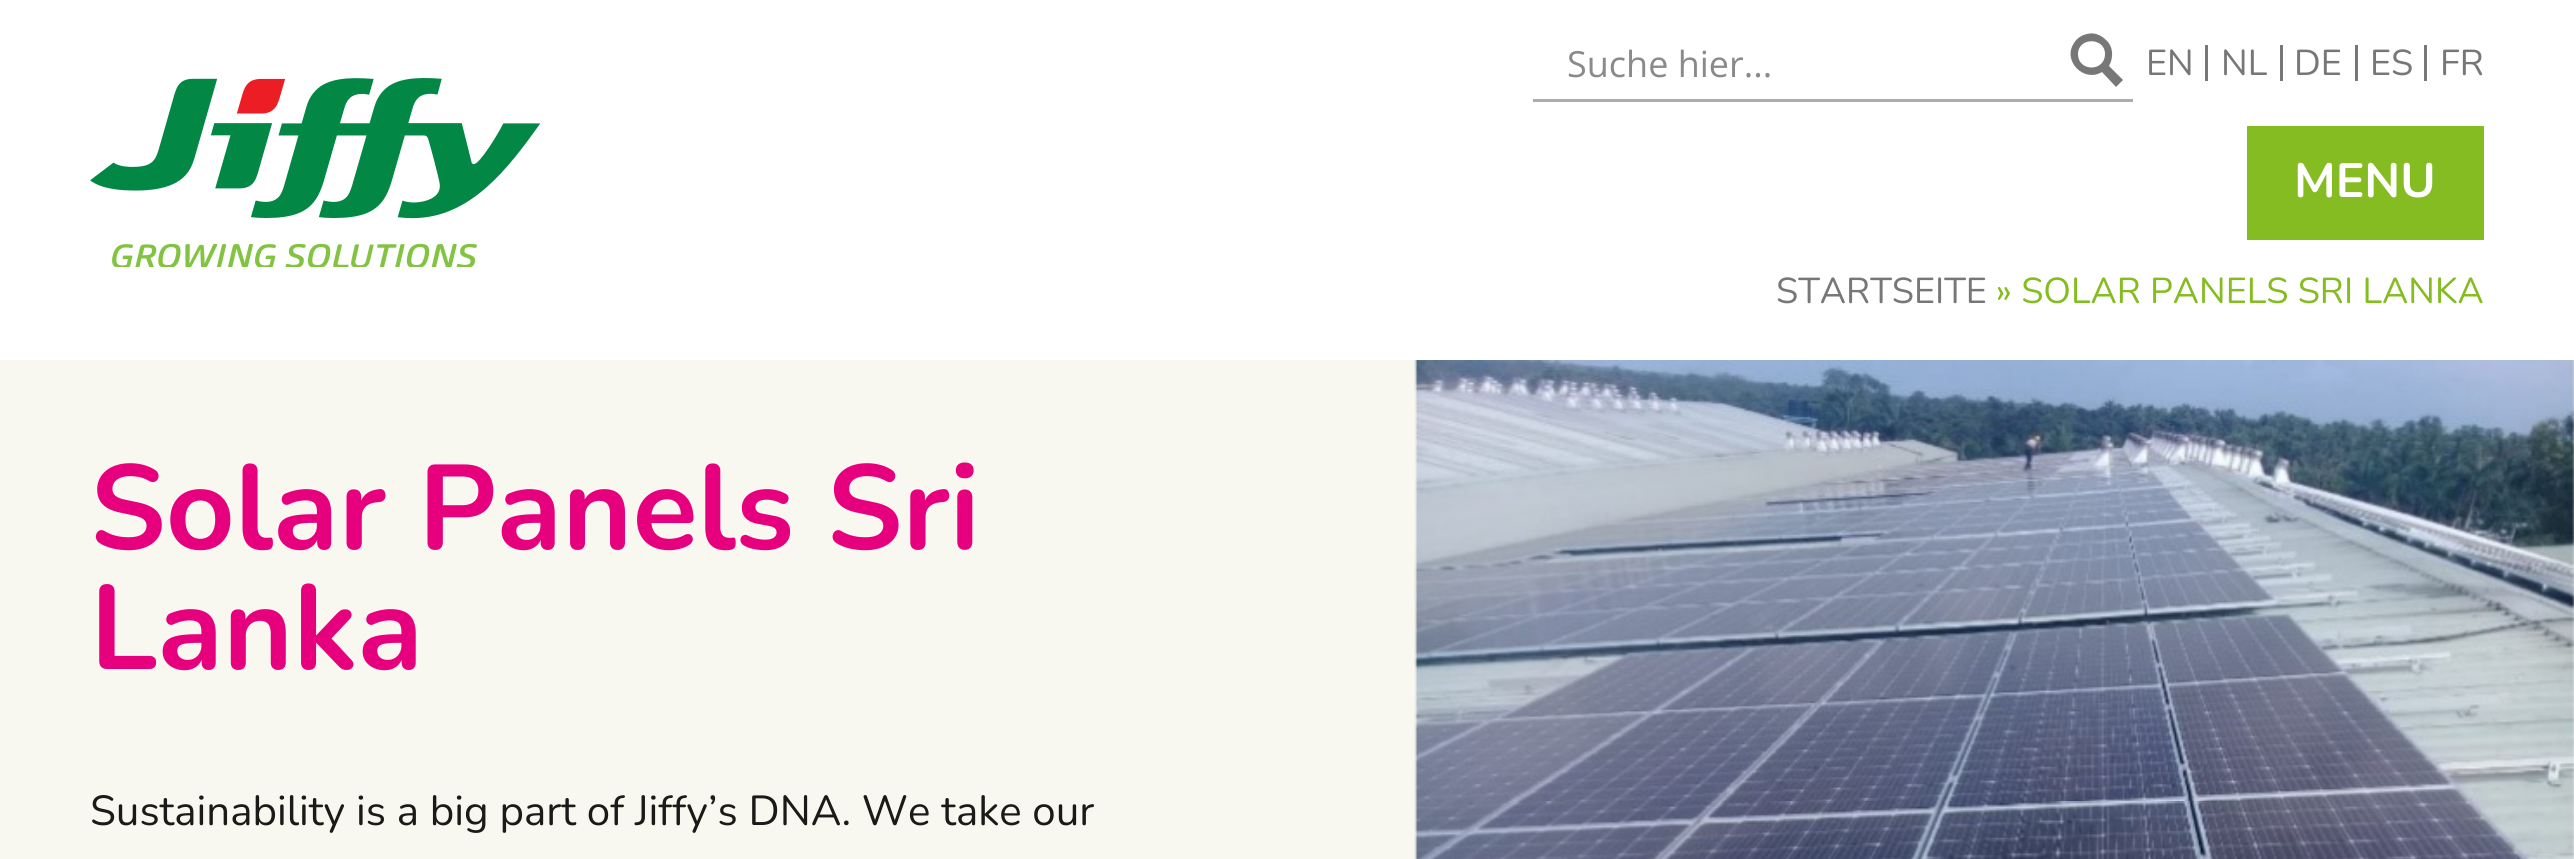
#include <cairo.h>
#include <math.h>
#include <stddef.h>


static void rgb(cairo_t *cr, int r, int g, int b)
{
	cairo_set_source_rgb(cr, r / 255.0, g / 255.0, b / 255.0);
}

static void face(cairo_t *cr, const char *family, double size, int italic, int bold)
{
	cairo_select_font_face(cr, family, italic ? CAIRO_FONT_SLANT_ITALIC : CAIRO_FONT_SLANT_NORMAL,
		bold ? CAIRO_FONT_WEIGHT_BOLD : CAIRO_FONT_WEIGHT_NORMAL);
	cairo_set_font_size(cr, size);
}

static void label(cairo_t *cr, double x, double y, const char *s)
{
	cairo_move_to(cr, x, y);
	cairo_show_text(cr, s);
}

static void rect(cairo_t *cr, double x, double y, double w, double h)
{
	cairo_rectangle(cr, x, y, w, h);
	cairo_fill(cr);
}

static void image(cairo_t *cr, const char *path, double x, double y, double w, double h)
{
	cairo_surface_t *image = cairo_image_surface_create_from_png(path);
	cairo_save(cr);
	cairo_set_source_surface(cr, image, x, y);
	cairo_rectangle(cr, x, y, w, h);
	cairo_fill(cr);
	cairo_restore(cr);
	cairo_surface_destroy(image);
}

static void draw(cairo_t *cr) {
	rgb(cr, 255, 255, 255);
	cairo_paint(cr);
	image(cr, "image0.png", 90, 78, 450, 189);
	rgb(cr, 172, 172, 172);
	rect(cr, 1533, 99, 600, 3);
	face(cr, "Open Sans", 36, 0, 0);
	rgb(cr, 138, 138, 138);
	label(cr, 1567, 77, "Suche hier...");
	rgb(cr, 119, 119, 119);
	cairo_new_path(cr);
	cairo_move_to(cr, 2123, 80);
	cairo_line_to(cr, 2109, 66);
	cairo_curve_to(cr, 2114, 57, 2113, 46, 2106, 40);
	cairo_curve_to(cr, 2101, 35, 2094, 32, 2087, 34);
	cairo_curve_to(cr, 2082, 35, 2077, 38, 2074, 43);
	cairo_curve_to(cr, 2062, 61, 2084, 83, 2102, 72);
	cairo_line_to(cr, 2116, 87);
	cairo_close_path(cr);
	cairo_move_to(cr, 2078, 54);
	cairo_curve_to(cr, 2078, 37, 2105, 37, 2105, 54);
	cairo_curve_to(cr, 2105, 72, 2078, 72, 2078, 54);
	cairo_close_path(cr);
	cairo_fill(cr);
	face(cr, "Nunito", 36, 0, 0);
	label(cr, 2146, 75, "EN");
	rect(cr, 2205, 45, 3, 36);
	label(cr, 2221, 75, "NL");
	rect(cr, 2280, 45, 3, 36);
	label(cr, 2294, 75, "DE");
	rect(cr, 2355, 45, 3, 36);
	label(cr, 2370, 75, "ES");
	rect(cr, 2424, 45, 3, 36);
	label(cr, 2440, 75, "FR");
	rgb(cr, 133, 188, 34);
	rect(cr, 2247, 126, 237, 114);
	face(cr, "Nunito", 48, 0, 1);
	rgb(cr, 255, 255, 255);
	label(cr, 2294, 197, "MENU");
	face(cr, "Nunito", 36, 0, 0);
	rgb(cr, 119, 119, 119);
	label(cr, 1776, 303, "STARTSEITE");
	rgb(cr, 133, 188, 34);
	label(cr, 1996, 303, "» SOLAR PANELS SRI LANKA");
	rgb(cr, 249, 248, 240);
	rect(cr, 0, 360, 2574, 499);
	face(cr, "Nunito", 120, 0, 1);
	rgb(cr, 230, 0, 125);
	label(cr, 90, 549, "Solar Panels Sri");
	label(cr, 90, 669, "Lanka");
	face(cr, "Nunito", 42, 0, 0);
	rgb(cr, 26, 26, 24);
	label(cr, 90, 825, "Sustainability is a big part of Jiffy’s DNA. We take our");
	image(cr, "image1.png", 1414, 360, 1160, 499);
}

int main(void) {
	cairo_surface_t *surface = cairo_image_surface_create(CAIRO_FORMAT_RGB24, 2574, 859);
	cairo_t *cr = cairo_create(surface);
	cairo_font_options_t *options = cairo_font_options_create();
	cairo_font_options_set_hint_metrics(options, CAIRO_HINT_METRICS_OFF);
	cairo_font_options_set_hint_style(options, CAIRO_HINT_STYLE_NONE);
	cairo_set_font_options(cr, options);
	cairo_set_miter_limit(cr, 4);
	draw(cr);
	cairo_surface_write_to_png(surface, "render.png");
	cairo_font_options_destroy(options);
	cairo_destroy(cr);
	cairo_surface_destroy(surface);
	return 0;
}
